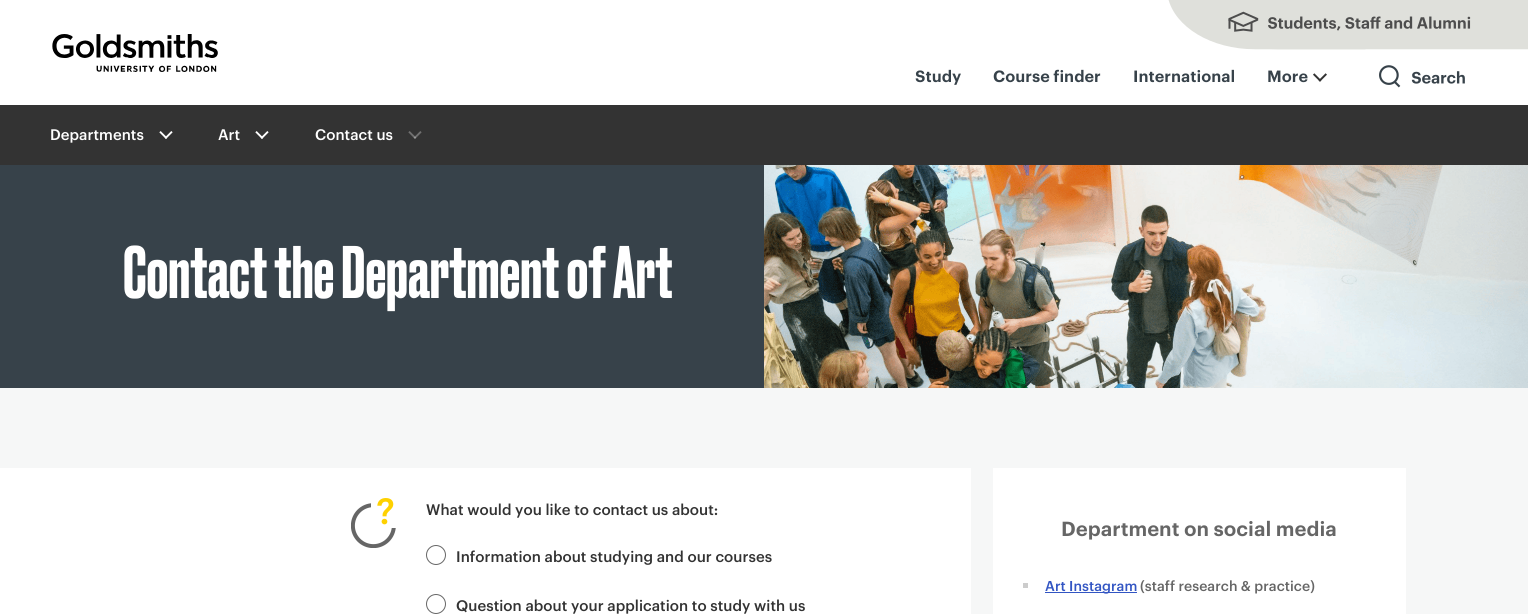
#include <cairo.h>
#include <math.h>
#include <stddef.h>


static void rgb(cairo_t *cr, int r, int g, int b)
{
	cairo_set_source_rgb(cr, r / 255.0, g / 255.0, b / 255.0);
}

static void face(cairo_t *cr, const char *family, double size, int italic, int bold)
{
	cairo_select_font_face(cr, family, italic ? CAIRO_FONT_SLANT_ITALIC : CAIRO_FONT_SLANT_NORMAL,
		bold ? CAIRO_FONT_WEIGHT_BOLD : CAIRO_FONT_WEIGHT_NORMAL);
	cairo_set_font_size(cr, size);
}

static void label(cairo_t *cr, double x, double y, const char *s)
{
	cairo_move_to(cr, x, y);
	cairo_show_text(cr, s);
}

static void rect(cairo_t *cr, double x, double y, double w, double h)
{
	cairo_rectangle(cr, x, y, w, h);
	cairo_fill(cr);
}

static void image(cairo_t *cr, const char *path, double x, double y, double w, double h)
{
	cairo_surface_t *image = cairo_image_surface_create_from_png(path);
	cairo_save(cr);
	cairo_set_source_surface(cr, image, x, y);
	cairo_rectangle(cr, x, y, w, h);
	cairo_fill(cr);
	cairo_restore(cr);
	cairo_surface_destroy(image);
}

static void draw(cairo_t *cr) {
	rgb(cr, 255, 255, 255);
	cairo_paint(cr);
	image(cr, "image0.png", 52, 34, 166, 38);
	image(cr, "image1.png", 1168, 0, 360, 50);
	face(cr, "Graphik SemiBold", 16, 0, 0);
	rgb(cr, 55, 66, 74);
	label(cr, 915, 82, "Study");
	label(cr, 993, 82, "Course finder");
	label(cr, 1133, 82, "International");
	label(cr, 1267, 82, "More");
	image(cr, "image2.png", 1313, 73, 14, 9);
	image(cr, "image3.png", 1379, 65, 86, 23);
	rgb(cr, 246, 247, 247);
	rect(cr, 0, 388, 1528, 226);
	rgb(cr, 51, 51, 51);
	rect(cr, 0, 105, 1528, 60);
	face(cr, "Graphik Medium", 15, 0, 0);
	rgb(cr, 255, 255, 255);
	label(cr, 50, 140, "Departments");
	image(cr, "image4.png", 159, 131, 14, 8);
	label(cr, 218, 140, "Art");
	image(cr, "image4.png", 255, 131, 14, 8);
	label(cr, 315, 140, "Contact us");
	image(cr, "image5.png", 408, 131, 14, 8);
	rgb(cr, 55, 66, 74);
	rect(cr, 0, 165, 764, 223);
	face(cr, "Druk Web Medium", 70, 0, 0);
	rgb(cr, 255, 255, 255);
	label(cr, 123, 298, "Contact the Department of Art");
	image(cr, "image6.png", 764, 165, 764, 223);
	rect(cr, 0, 468, 971, 146);
	image(cr, "image7.png", 351, 498, 45, 50);
	face(cr, "Graphik Medium", 15, 0, 0);
	rgb(cr, 51, 51, 51);
	label(cr, 426, 515, "What would you like to contact us about:");
	cairo_new_path(cr);
	cairo_arc(cr, 436, 555, 9.5, 0, 2 * M_PI);
	rgb(cr, 102, 102, 102);
	cairo_set_line_width(cr, 1);
	cairo_stroke(cr);
	rgb(cr, 51, 51, 51);
	label(cr, 456, 562, "Information about studying and our courses");
	cairo_new_path(cr);
	cairo_arc(cr, 436, 604, 9.5, 0, 2 * M_PI);
	rgb(cr, 102, 102, 102);
	cairo_stroke(cr);
	rgb(cr, 51, 51, 51);
	label(cr, 456, 611, "Question about your application to study with us");
	rgb(cr, 255, 255, 255);
	rect(cr, 993, 468, 413, 146);
	face(cr, "Graphik SemiBold", 20, 0, 0);
	rgb(cr, 102, 102, 102);
	label(cr, 1061, 536, "Department on social media");
	rgb(cr, 204, 204, 204);
	rect(cr, 1023, 583, 5, 5);
	rgb(cr, 50, 85, 195);
	rect(cr, 1045, 592, 92, 1);
	face(cr, "Graphik Medium", 14, 0, 0);
	label(cr, 1045, 591, "Art Instagram");
	rgb(cr, 102, 102, 102);
	label(cr, 1140, 591, "(staff research & practice)");
}

int main(void) {
	cairo_surface_t *surface = cairo_image_surface_create(CAIRO_FORMAT_RGB24, 1528, 614);
	cairo_t *cr = cairo_create(surface);
	cairo_font_options_t *options = cairo_font_options_create();
	cairo_font_options_set_hint_metrics(options, CAIRO_HINT_METRICS_OFF);
	cairo_font_options_set_hint_style(options, CAIRO_HINT_STYLE_NONE);
	cairo_set_font_options(cr, options);
	cairo_set_miter_limit(cr, 4);
	draw(cr);
	cairo_surface_write_to_png(surface, "render.png");
	cairo_font_options_destroy(options);
	cairo_destroy(cr);
	cairo_surface_destroy(surface);
	return 0;
}
